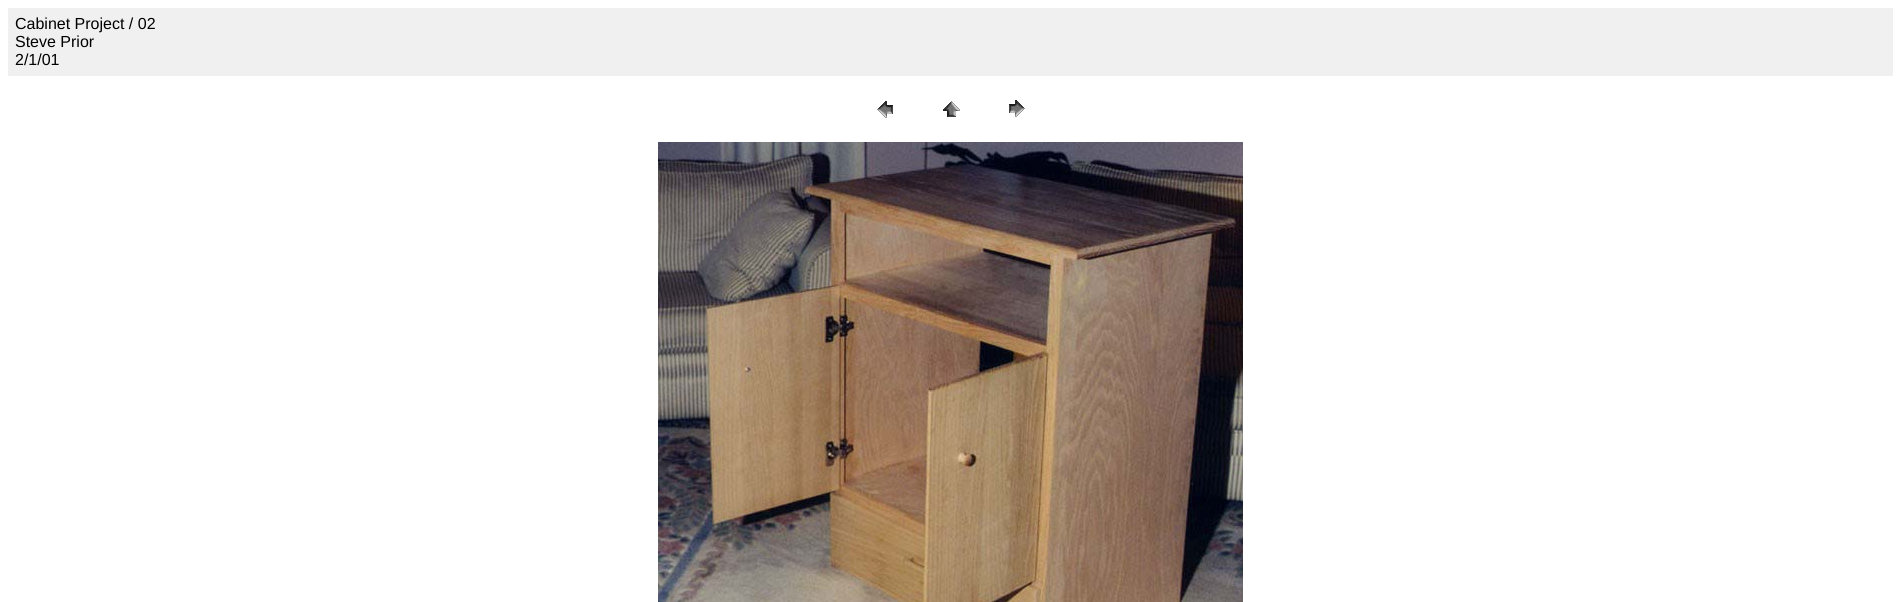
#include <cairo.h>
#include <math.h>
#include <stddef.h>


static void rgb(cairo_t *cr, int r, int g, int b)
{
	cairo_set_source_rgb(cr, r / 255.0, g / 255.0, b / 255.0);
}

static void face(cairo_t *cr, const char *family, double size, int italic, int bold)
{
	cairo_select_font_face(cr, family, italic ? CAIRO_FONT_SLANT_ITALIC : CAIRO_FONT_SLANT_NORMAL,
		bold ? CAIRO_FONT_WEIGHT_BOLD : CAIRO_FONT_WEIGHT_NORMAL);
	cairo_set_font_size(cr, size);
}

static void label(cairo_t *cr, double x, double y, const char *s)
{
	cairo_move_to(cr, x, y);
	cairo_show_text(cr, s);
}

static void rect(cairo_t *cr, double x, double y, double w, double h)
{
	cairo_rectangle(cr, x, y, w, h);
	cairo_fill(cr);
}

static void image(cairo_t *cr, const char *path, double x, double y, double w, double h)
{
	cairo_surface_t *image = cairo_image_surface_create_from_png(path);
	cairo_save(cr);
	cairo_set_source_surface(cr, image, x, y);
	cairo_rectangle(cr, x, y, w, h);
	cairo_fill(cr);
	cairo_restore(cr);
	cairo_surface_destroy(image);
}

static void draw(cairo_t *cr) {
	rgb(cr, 255, 255, 255);
	cairo_paint(cr);
	rgb(cr, 240, 240, 240);
	rect(cr, 8, 8, 1885, 68);
	face(cr, "Liberation Sans", 16, 0, 0);
	rgb(cr, 0, 0, 0);
	label(cr, 15, 29, "Cabinet Project / 02");
	label(cr, 15, 47, "Steve Prior");
	label(cr, 15, 65, "2/1/01");
	image(cr, "image0.png", 877, 101, 16, 17);
	image(cr, "image1.png", 943, 101, 17, 16);
	image(cr, "image2.png", 1009, 100, 16, 17);
	image(cr, "image3.png", 658, 142, 585, 460);
}

int main(void) {
	cairo_surface_t *surface = cairo_image_surface_create(CAIRO_FORMAT_RGB24, 1901, 602);
	cairo_t *cr = cairo_create(surface);
	cairo_font_options_t *options = cairo_font_options_create();
	cairo_font_options_set_hint_metrics(options, CAIRO_HINT_METRICS_OFF);
	cairo_font_options_set_hint_style(options, CAIRO_HINT_STYLE_NONE);
	cairo_set_font_options(cr, options);
	cairo_set_miter_limit(cr, 4);
	draw(cr);
	cairo_surface_write_to_png(surface, "render.png");
	cairo_font_options_destroy(options);
	cairo_destroy(cr);
	cairo_surface_destroy(surface);
	return 0;
}
